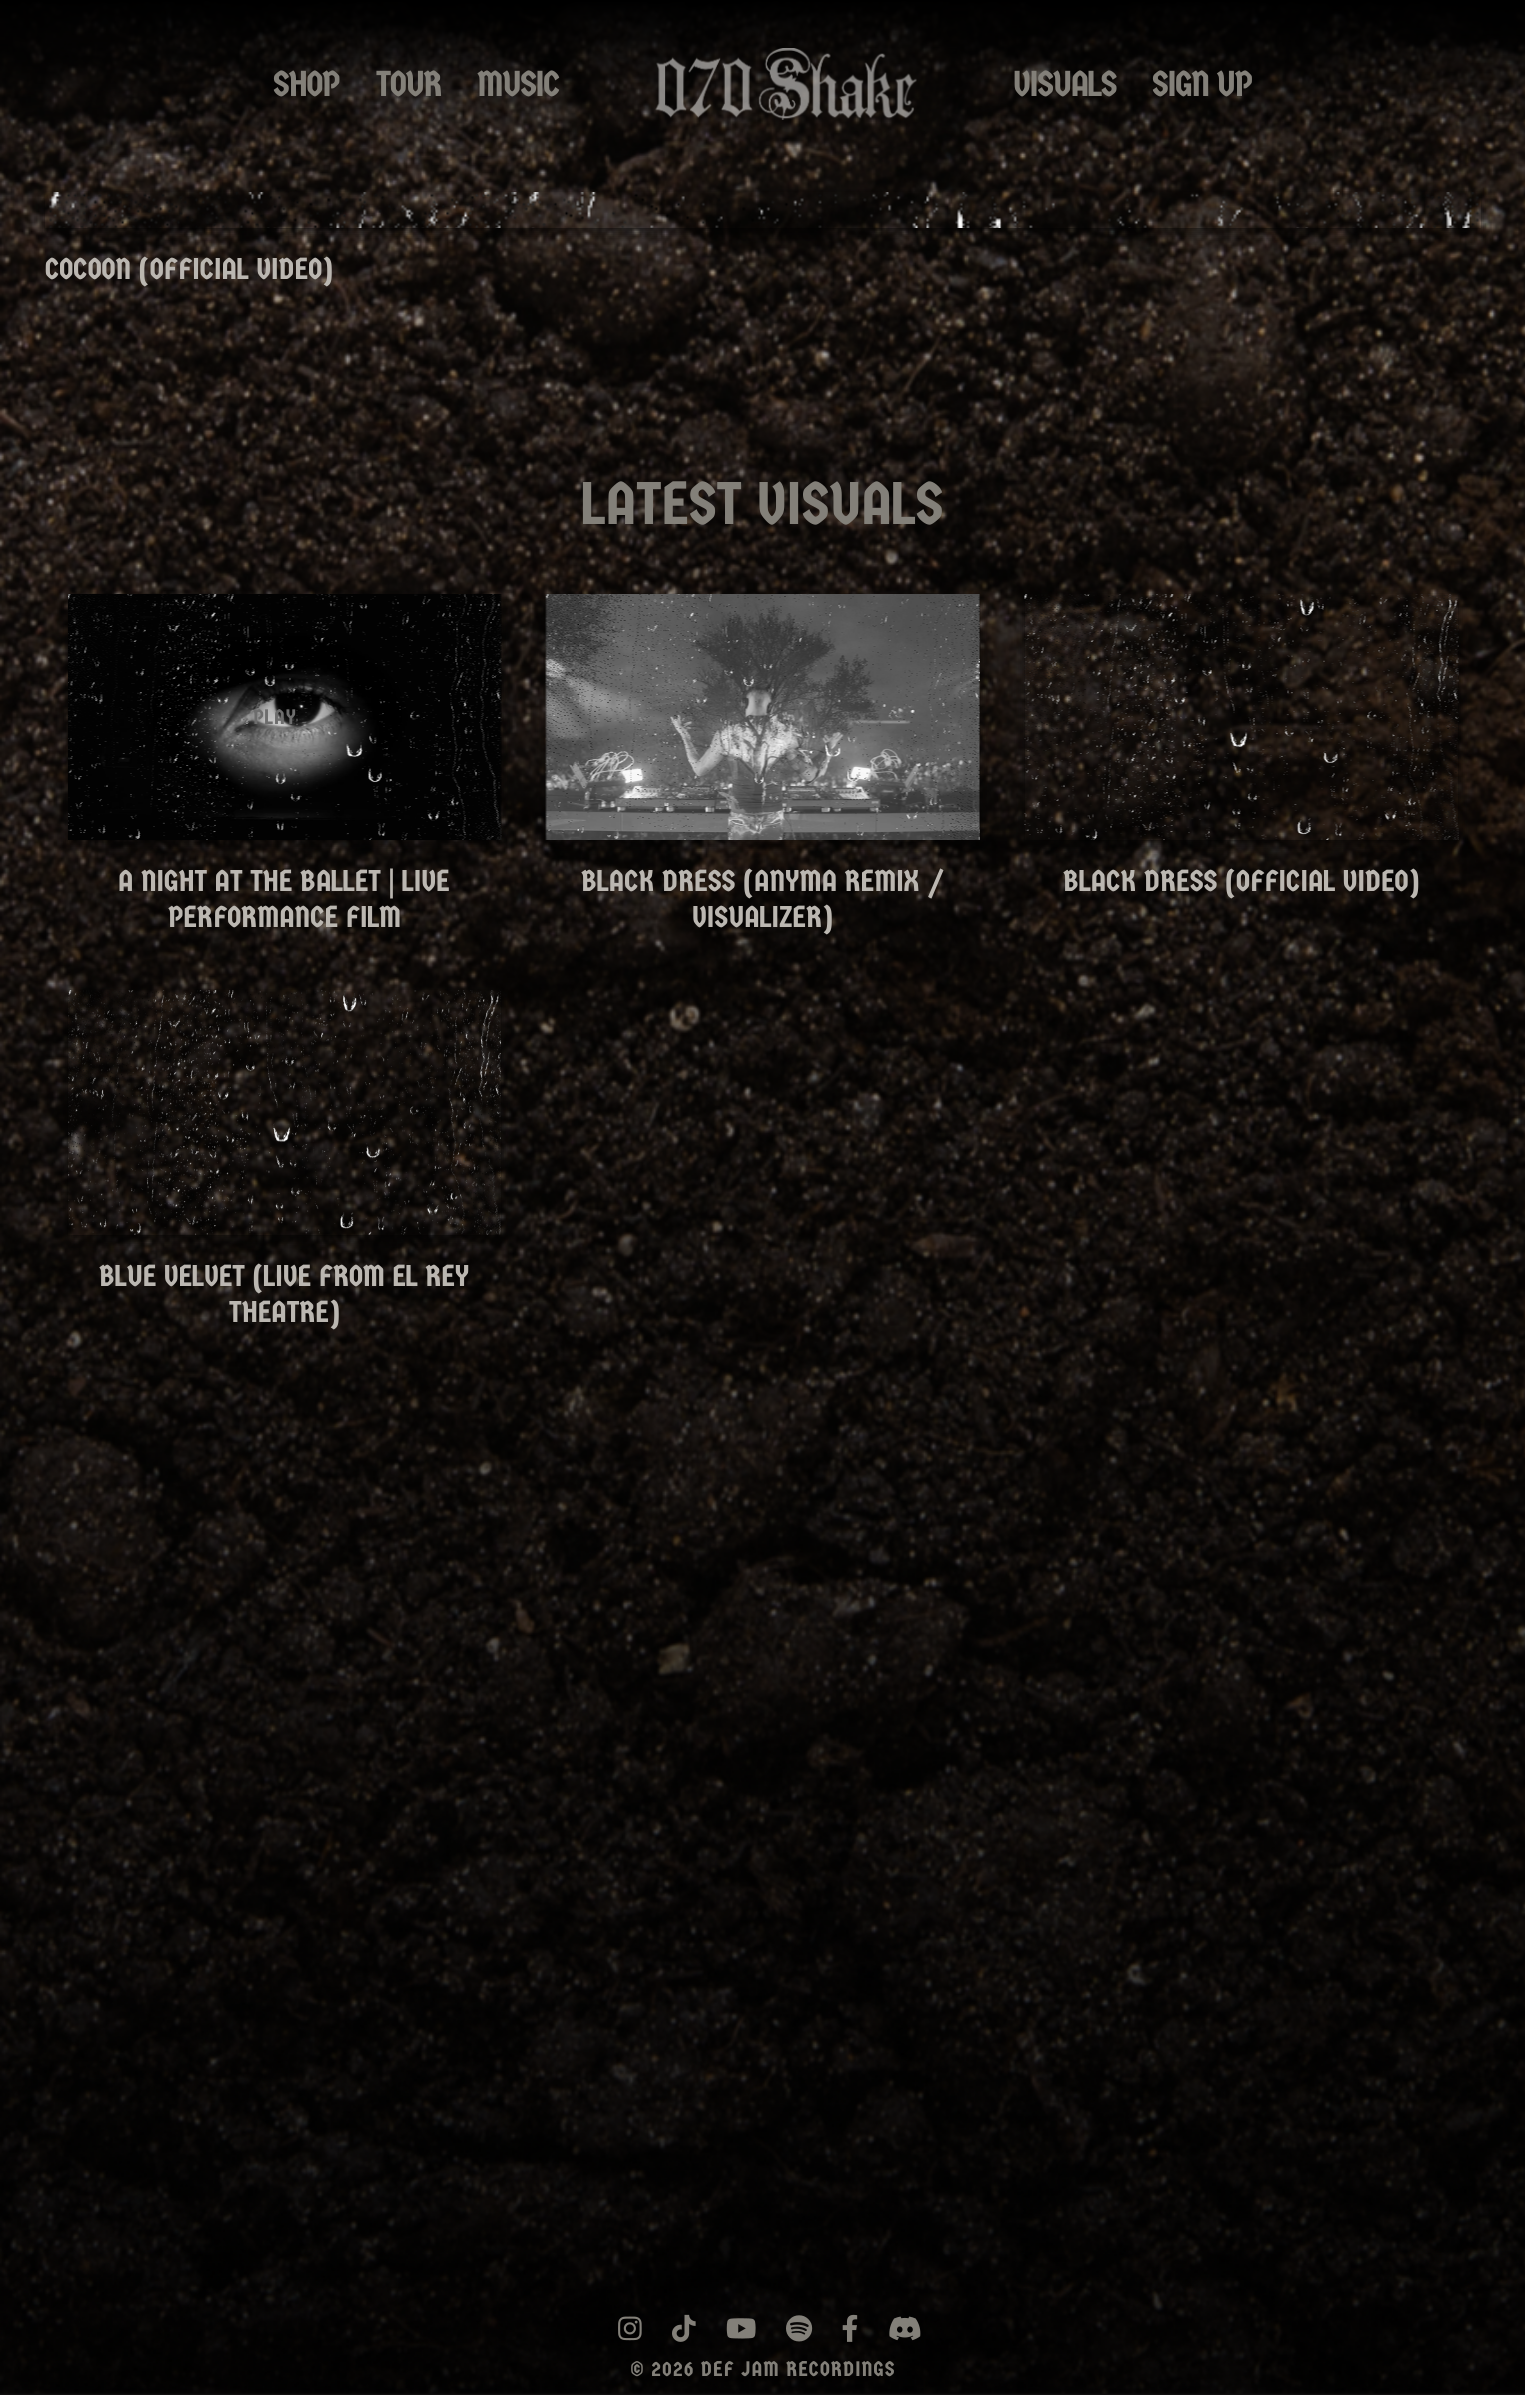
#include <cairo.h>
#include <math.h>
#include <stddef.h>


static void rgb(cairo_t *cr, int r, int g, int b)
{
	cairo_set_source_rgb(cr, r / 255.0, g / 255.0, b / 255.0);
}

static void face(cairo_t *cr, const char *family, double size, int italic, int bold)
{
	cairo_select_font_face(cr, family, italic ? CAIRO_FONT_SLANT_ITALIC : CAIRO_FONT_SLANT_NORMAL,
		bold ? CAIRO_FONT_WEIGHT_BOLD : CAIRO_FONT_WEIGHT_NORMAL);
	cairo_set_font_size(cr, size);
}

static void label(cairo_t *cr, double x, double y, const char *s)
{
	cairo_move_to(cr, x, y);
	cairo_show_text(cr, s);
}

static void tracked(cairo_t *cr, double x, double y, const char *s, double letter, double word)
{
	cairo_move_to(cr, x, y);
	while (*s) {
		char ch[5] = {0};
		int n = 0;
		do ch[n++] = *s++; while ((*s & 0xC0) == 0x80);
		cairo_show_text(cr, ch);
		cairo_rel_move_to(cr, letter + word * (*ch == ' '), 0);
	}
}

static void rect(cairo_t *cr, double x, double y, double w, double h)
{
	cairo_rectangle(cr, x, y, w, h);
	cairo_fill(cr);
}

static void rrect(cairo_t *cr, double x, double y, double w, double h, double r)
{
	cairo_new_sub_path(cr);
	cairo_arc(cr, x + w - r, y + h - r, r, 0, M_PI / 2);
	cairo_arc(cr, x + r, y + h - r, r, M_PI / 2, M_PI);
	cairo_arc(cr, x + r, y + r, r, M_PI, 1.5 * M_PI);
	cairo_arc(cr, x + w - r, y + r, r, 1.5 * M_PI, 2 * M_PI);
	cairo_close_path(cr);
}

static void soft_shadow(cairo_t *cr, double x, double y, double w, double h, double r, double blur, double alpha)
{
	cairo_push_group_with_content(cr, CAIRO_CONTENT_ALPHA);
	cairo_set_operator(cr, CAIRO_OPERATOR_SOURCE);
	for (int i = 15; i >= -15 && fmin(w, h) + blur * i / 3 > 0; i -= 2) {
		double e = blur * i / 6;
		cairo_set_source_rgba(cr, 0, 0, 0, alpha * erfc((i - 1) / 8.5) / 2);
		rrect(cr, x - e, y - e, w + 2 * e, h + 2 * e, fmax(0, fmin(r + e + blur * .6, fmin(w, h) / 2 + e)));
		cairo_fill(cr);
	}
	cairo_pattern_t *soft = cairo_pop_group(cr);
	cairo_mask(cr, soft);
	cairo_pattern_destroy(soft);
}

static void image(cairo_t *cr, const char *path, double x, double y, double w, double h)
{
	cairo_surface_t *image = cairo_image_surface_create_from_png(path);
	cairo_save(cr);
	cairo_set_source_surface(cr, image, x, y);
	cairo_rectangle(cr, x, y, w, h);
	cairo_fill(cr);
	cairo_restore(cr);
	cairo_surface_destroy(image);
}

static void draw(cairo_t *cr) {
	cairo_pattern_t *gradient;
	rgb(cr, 16, 14, 14);
	cairo_paint(cr);
	image(cr, "image1.png", 0, 1, 1525, 2393);
	gradient = cairo_pattern_create_linear(763, 0, 763, 168);
	cairo_pattern_add_color_stop_rgba(gradient, 0, 0, 0, 0, 1);
	cairo_pattern_add_color_stop_rgba(gradient, 1, 0, 0, 0, 0);
	cairo_set_source(cr, gradient);
	cairo_pattern_destroy(gradient);
	rect(cr, 0, 0, 1525, 164);
	face(cr, "Germania One", 36, 0, 0);
	rgb(cr, 131, 128, 121);
	tracked(cr, 273, 96, "SHOP", -1.25, 0);
	tracked(cr, 376, 96, "TOUR", -1.25, 0);
	tracked(cr, 477, 96, "MUSIC", -1.25, 0);
	image(cr, "image0.png", 655, 48, 262, 72);
	tracked(cr, 1013, 96, "VISUALS", -1.25, 0);
	tracked(cr, 1152, 96, "SIGN UP", -1.25, 0);
	cairo_save(cr);
	cairo_set_fill_rule(cr, CAIRO_FILL_RULE_EVEN_ODD);
	cairo_new_path(cr);
	cairo_move_to(cr, 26, 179);
	cairo_line_to(cr, 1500, 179);
	cairo_line_to(cr, 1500, 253);
	cairo_line_to(cr, 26, 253);
	cairo_close_path(cr);
	cairo_move_to(cr, 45, 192);
	cairo_line_to(cr, 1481, 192);
	cairo_line_to(cr, 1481, 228);
	cairo_line_to(cr, 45, 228);
	cairo_close_path(cr);
	cairo_clip(cr);
	rgb(cr, 0, 0, 0);
	soft_shadow(cr, 45, 198, 1436, 36, 0, 6, 0.5);
	cairo_restore(cr);
	image(cr, "image2.png", 49, 192, 1430, 36);
	face(cr, "Germania One", 30, 0, 0);
	rgb(cr, 187, 183, 177);
	label(cr, 45, 279, "COCOON (OFFICIAL VIDEO)");
	face(cr, "Germania One", 60, 0, 0);
	rgb(cr, 131, 128, 121);
	label(cr, 582, 524, "LATEST VISUALS");
	rgb(cr, 0, 0, 0);
	soft_shadow(cr, 68, 600, 433, 246, 0, 6, 0.5);
	image(cr, "image3.png", 68, 594, 434, 246);
	image(cr, "image4.png", 68, 594, 434, 246);
	face(cr, "Germania One", 21, 0, 0);
	rgb(cr, 109, 109, 109);
	tracked(cr, 253, 724, "PLAY", 1.05, 0);
	face(cr, "Germania One", 30, 0, 0);
	rgb(cr, 187, 183, 177);
	label(cr, 118, 891, "A NIGHT AT THE BALLET | LIVE");
	label(cr, 168, 927, "PERFORMANCE FILM");
	rgb(cr, 0, 0, 0);
	soft_shadow(cr, 546, 600, 434, 246, 0, 6, 0.5);
	image(cr, "image5.png", 545, 594, 435, 246);
	image(cr, "image6.png", 545, 594, 435, 246);
	rgb(cr, 187, 183, 177);
	label(cr, 581, 891, "BLACK DRESS (ANYMA REMIX /");
	label(cr, 692, 927, "VISUALIZER)");
	cairo_save(cr);
	cairo_set_fill_rule(cr, CAIRO_FILL_RULE_EVEN_ODD);
	cairo_new_path(cr);
	cairo_move_to(cr, 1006, 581);
	cairo_line_to(cr, 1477, 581);
	cairo_line_to(cr, 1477, 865);
	cairo_line_to(cr, 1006, 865);
	cairo_close_path(cr);
	cairo_move_to(cr, 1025, 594);
	cairo_line_to(cr, 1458, 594);
	cairo_line_to(cr, 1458, 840);
	cairo_line_to(cr, 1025, 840);
	cairo_close_path(cr);
	cairo_clip(cr);
	rgb(cr, 0, 0, 0);
	soft_shadow(cr, 1025, 600, 433, 246, 0, 6, 0.5);
	cairo_restore(cr);
	image(cr, "image7.png", 1024, 594, 435, 246);
	label(cr, 1063, 891, "BLACK DRESS (OFFICIAL VIDEO)");
	cairo_save(cr);
	cairo_set_fill_rule(cr, CAIRO_FILL_RULE_EVEN_ODD);
	cairo_new_path(cr);
	cairo_move_to(cr, 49, 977);
	cairo_line_to(cr, 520, 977);
	cairo_line_to(cr, 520, 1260);
	cairo_line_to(cr, 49, 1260);
	cairo_close_path(cr);
	cairo_move_to(cr, 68, 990);
	cairo_line_to(cr, 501, 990);
	cairo_line_to(cr, 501, 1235);
	cairo_line_to(cr, 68, 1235);
	cairo_close_path(cr);
	cairo_clip(cr);
	rgb(cr, 0, 0, 0);
	soft_shadow(cr, 68, 996, 433, 245, 0, 6, 0.5);
	cairo_restore(cr);
	image(cr, "image8.png", 68, 990, 433, 245);
	label(cr, 99, 1286, "BLUE VELVET (LIVE FROM EL REY");
	label(cr, 229, 1322, "THEATRE)");
	image(cr, "image9.png", 618, 2316, 24, 25);
	image(cr, "image10.png", 672, 2314, 24, 28);
	image(cr, "image11.png", 726, 2318, 30, 21);
	image(cr, "image12.png", 786, 2315, 27, 27);
	image(cr, "image13.png", 842, 2314, 16, 28);
	image(cr, "image14.png", 889, 2316, 32, 25);
	face(cr, "Germania One", 21, 0, 0);
	rgb(cr, 131, 128, 121);
	tracked(cr, 630, 2376, "© 2026 DEF JAM RECORDINGS", 1.05, 0);
}

int main(void) {
	cairo_surface_t *surface = cairo_image_surface_create(CAIRO_FORMAT_RGB24, 1525, 2395);
	cairo_t *cr = cairo_create(surface);
	cairo_font_options_t *options = cairo_font_options_create();
	cairo_font_options_set_hint_metrics(options, CAIRO_HINT_METRICS_OFF);
	cairo_font_options_set_hint_style(options, CAIRO_HINT_STYLE_NONE);
	cairo_set_font_options(cr, options);
	cairo_set_miter_limit(cr, 4);
	draw(cr);
	cairo_surface_write_to_png(surface, "render.png");
	cairo_font_options_destroy(options);
	cairo_destroy(cr);
	cairo_surface_destroy(surface);
	return 0;
}
